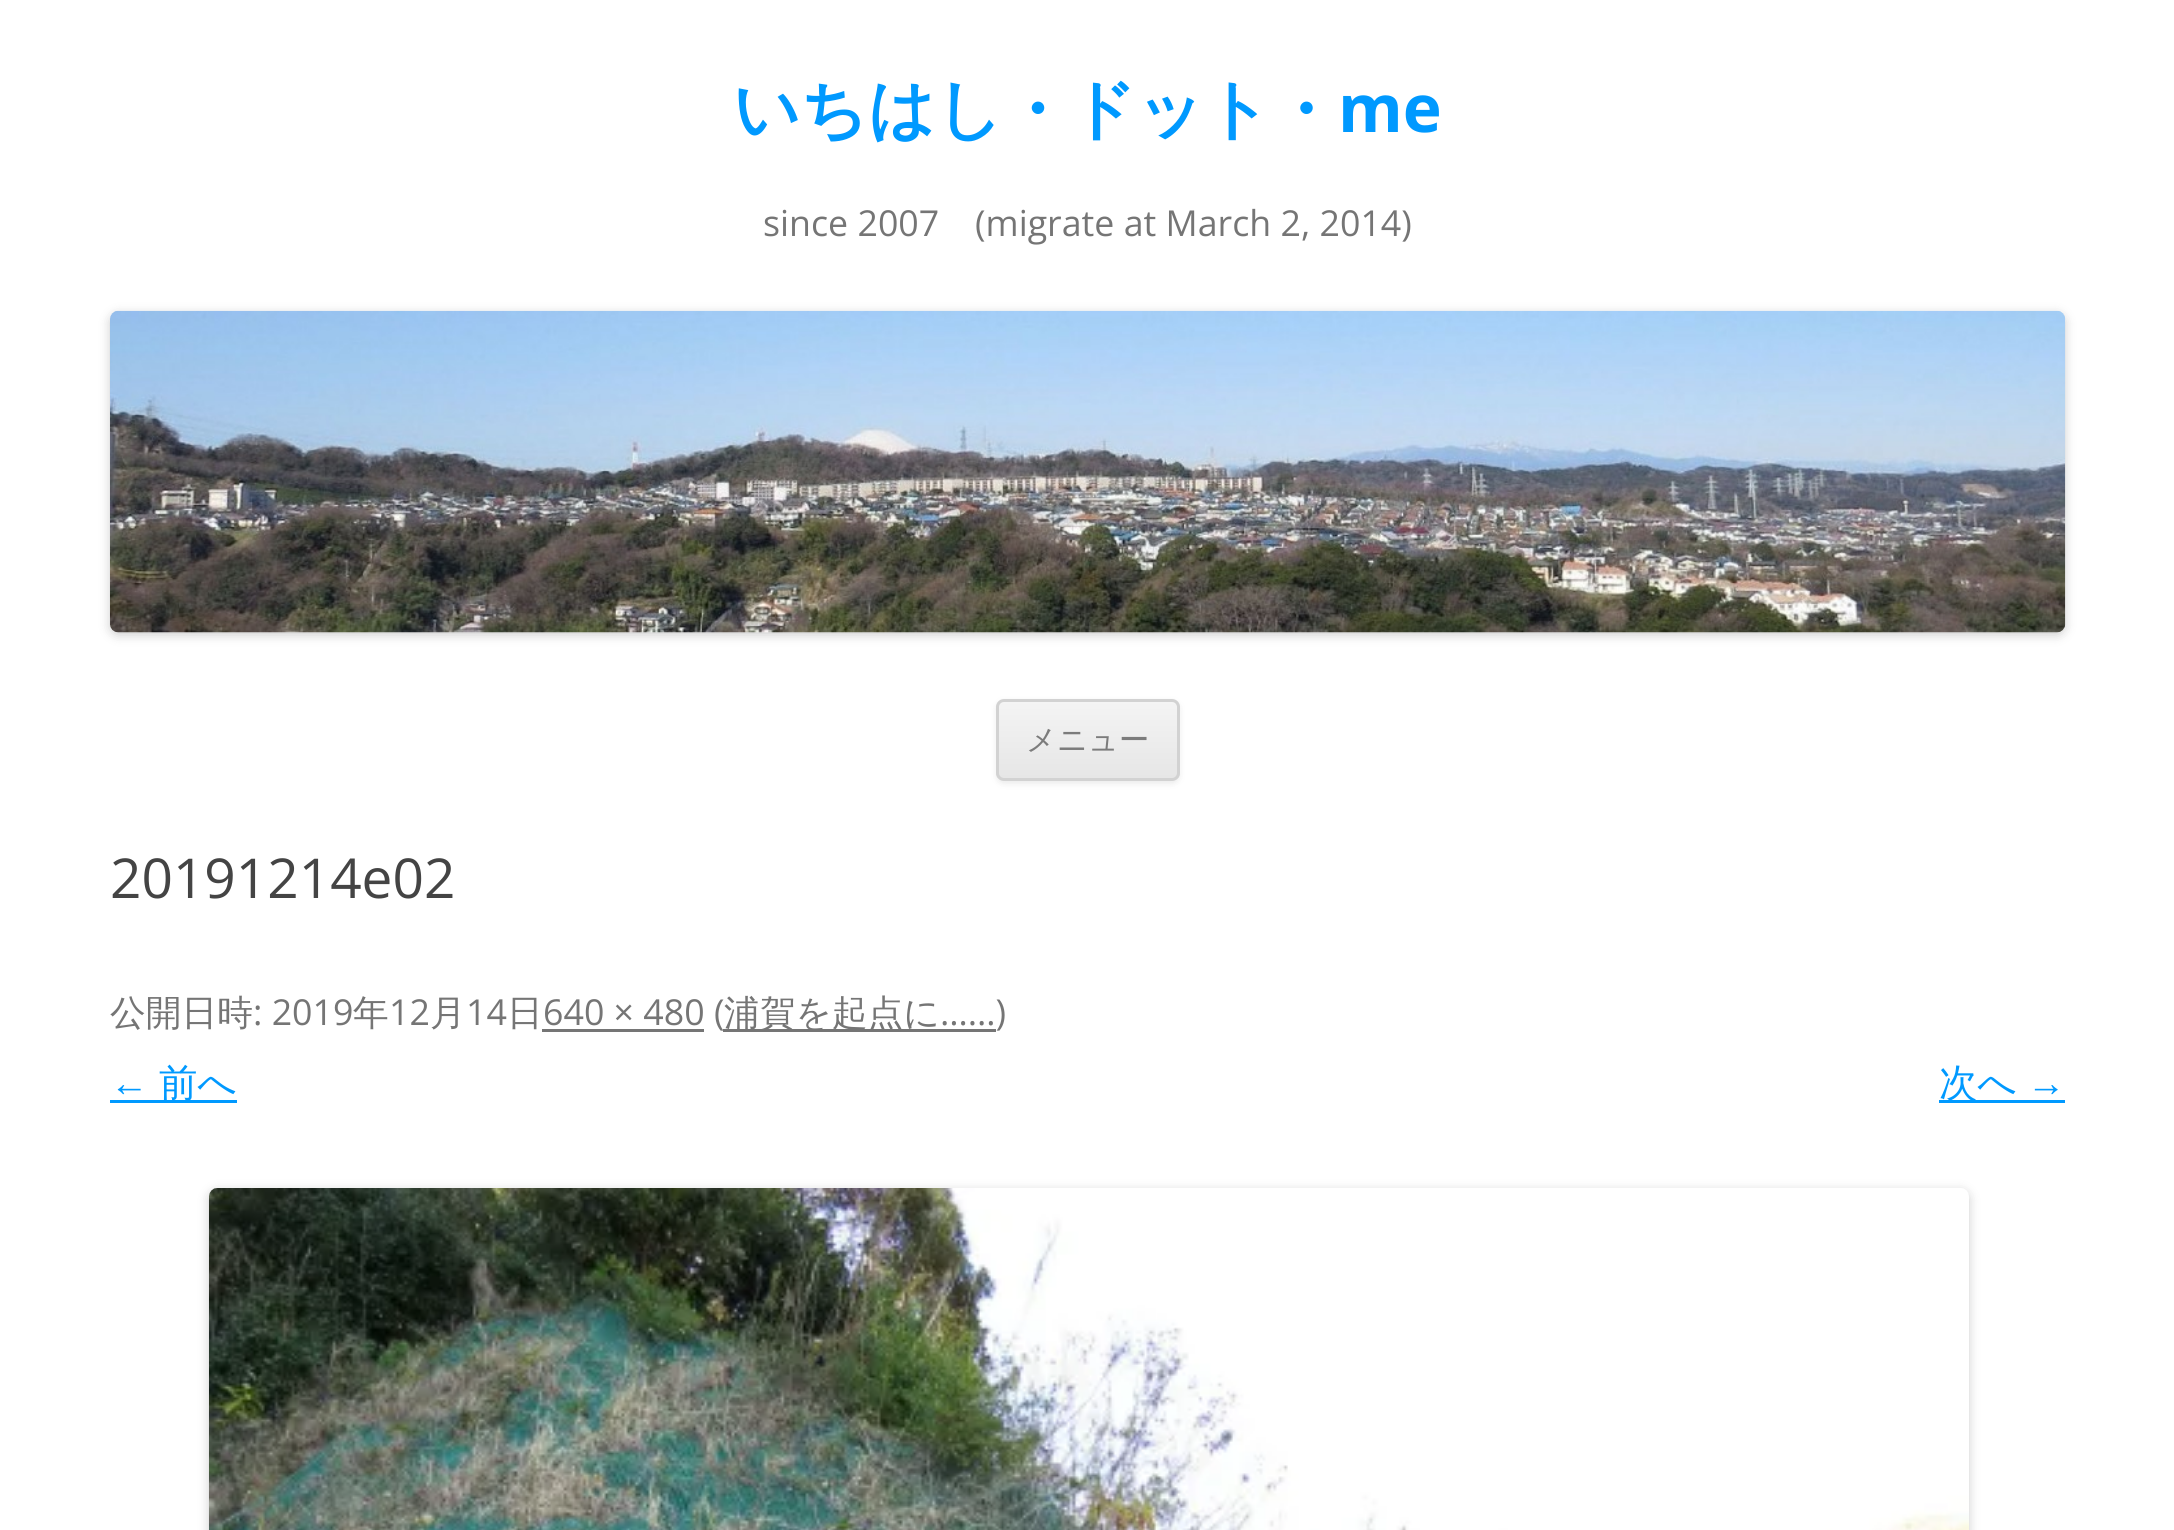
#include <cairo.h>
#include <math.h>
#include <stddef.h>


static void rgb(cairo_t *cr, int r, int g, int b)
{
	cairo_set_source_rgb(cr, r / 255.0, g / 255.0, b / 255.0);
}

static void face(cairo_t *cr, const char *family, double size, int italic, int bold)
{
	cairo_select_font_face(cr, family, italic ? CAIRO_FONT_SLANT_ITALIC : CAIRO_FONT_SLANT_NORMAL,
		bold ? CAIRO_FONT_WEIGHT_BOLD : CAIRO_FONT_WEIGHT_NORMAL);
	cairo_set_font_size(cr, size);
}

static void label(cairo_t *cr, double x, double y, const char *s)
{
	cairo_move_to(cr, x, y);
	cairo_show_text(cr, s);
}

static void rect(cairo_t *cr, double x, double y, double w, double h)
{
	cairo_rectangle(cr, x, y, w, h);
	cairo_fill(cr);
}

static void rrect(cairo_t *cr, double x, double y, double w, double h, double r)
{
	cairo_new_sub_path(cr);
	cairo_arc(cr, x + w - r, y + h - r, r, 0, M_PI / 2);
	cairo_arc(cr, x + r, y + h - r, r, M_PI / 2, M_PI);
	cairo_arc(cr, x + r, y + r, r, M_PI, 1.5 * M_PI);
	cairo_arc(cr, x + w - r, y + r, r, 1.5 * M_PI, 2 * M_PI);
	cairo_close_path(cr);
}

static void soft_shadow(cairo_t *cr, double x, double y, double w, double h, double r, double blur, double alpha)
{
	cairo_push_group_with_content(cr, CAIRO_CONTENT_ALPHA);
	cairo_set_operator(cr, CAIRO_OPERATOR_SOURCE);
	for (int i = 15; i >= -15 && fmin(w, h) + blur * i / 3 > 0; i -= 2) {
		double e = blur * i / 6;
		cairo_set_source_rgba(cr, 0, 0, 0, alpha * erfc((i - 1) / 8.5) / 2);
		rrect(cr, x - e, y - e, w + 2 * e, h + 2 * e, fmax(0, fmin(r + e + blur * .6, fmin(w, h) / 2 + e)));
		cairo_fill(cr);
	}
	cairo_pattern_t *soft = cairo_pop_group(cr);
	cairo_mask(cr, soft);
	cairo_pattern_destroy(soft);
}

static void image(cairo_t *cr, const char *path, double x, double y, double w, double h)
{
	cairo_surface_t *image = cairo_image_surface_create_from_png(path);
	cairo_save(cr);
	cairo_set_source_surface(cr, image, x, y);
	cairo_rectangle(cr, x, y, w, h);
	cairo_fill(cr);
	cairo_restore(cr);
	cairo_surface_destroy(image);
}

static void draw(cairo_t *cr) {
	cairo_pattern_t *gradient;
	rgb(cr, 255, 255, 255);
	cairo_paint(cr);
	face(cr, "WenQuanYi Zen Hei", 66, 0, 1);
	rgb(cr, 0, 153, 255);
	label(cr, 733, 132, "いちはし・ドット・");
	face(cr, "Open Sans", 66, 0, 1);
	label(cr, 1338, 132, "me");
	face(cr, "Open Sans", 35.75, 0, 0);
	rgb(cr, 117, 117, 117);
	label(cr, 763, 236, "since 2007");
	label(cr, 975, 236, "(migrate at March 2, 2014)");
	rgb(cr, 0, 0, 0);
	soft_shadow(cr, 110, 314, 1955, 321, 8, 5.5, 0.2);
	image(cr, "image0.png", 110, 310, 1956, 323);
	rgb(cr, 64, 64, 64);
	soft_shadow(cr, 996, 701, 184, 83, 8, 3, 0.1);
	cairo_save(cr);
	rrect(cr, 996, 699, 184, 82, 8);
	cairo_clip(cr);
	gradient = cairo_pattern_create_linear(1088, 701, 1088, 778);
	cairo_pattern_add_color_stop_rgba(gradient, 0, 0.957, 0.957, 0.957, 1);
	cairo_pattern_add_color_stop_rgba(gradient, 1, 0.902, 0.902, 0.902, 1);
	cairo_set_source(cr, gradient);
	cairo_pattern_destroy(gradient);
	rect(cr, 996, 701, 184, 77);
	cairo_restore(cr);
	rrect(cr, 997.5, 700.5, 181, 79, 6.5);
	rgb(cr, 210, 210, 210);
	cairo_set_line_width(cr, 3);
	cairo_stroke(cr);
	face(cr, "WenQuanYi Zen Hei Medium", 30.25, 0, 0);
	rgb(cr, 124, 124, 124);
	label(cr, 1026, 750, "メニュー");
	face(cr, "Open Sans", 55, 0, 0);
	rgb(cr, 68, 68, 68);
	label(cr, 110, 898, "20191214e02");
	face(cr, "WenQuanYi Zen Hei Medium", 35.75, 0, 0);
	rgb(cr, 117, 117, 117);
	label(cr, 110, 1025, "公開日時");
	face(cr, "Open Sans", 35.75, 0, 0);
	label(cr, 253, 1025, ": 2019");
	face(cr, "WenQuanYi Zen Hei Medium", 35.75, 0, 0);
	label(cr, 353, 1025, "年");
	face(cr, "Open Sans", 35.75, 0, 0);
	label(cr, 389, 1025, "12");
	face(cr, "WenQuanYi Zen Hei Medium", 35.75, 0, 0);
	label(cr, 430, 1025, "月");
	face(cr, "Open Sans", 35.75, 0, 0);
	label(cr, 466, 1025, "14");
	face(cr, "WenQuanYi Zen Hei Medium", 35.75, 0, 0);
	label(cr, 507, 1025, "日");
	rect(cr, 542, 1029, 162, 3);
	face(cr, "Open Sans", 35.75, 0, 0);
	label(cr, 543, 1025, "640 × 480 (");
	rect(cr, 723, 1029, 273, 3);
	face(cr, "WenQuanYi Zen Hei Medium", 35.75, 0, 0);
	label(cr, 724, 1025, "浦賀を起点に");
	face(cr, "Open Sans", 35.75, 0, 0);
	label(cr, 940, 1025, "……)");
	face(cr, "Liberation Sans", 38.5, 0, 0);
	rgb(cr, 0, 153, 255);
	label(cr, 110, 1096, "←");
	rect(cr, 110, 1100, 127, 3);
	face(cr, "WenQuanYi Zen Hei Medium", 38.5, 0, 0);
	label(cr, 159, 1096, "前へ");
	rect(cr, 1939, 1100, 126, 3);
	label(cr, 1939, 1096, "次へ");
	face(cr, "Liberation Sans", 38.5, 0, 0);
	label(cr, 2027, 1096, "→");
	rgb(cr, 0, 0, 0);
	soft_shadow(cr, 209, 1191, 1760, 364, 8, 5.5, 0.2);
	image(cr, "image1.png", 209, 1188, 1760, 342);
}

int main(void) {
	cairo_surface_t *surface = cairo_image_surface_create(CAIRO_FORMAT_RGB24, 2174, 1530);
	cairo_t *cr = cairo_create(surface);
	cairo_font_options_t *options = cairo_font_options_create();
	cairo_font_options_set_hint_metrics(options, CAIRO_HINT_METRICS_OFF);
	cairo_font_options_set_hint_style(options, CAIRO_HINT_STYLE_NONE);
	cairo_set_font_options(cr, options);
	cairo_set_miter_limit(cr, 4);
	draw(cr);
	cairo_surface_write_to_png(surface, "render.png");
	cairo_font_options_destroy(options);
	cairo_destroy(cr);
	cairo_surface_destroy(surface);
	return 0;
}
